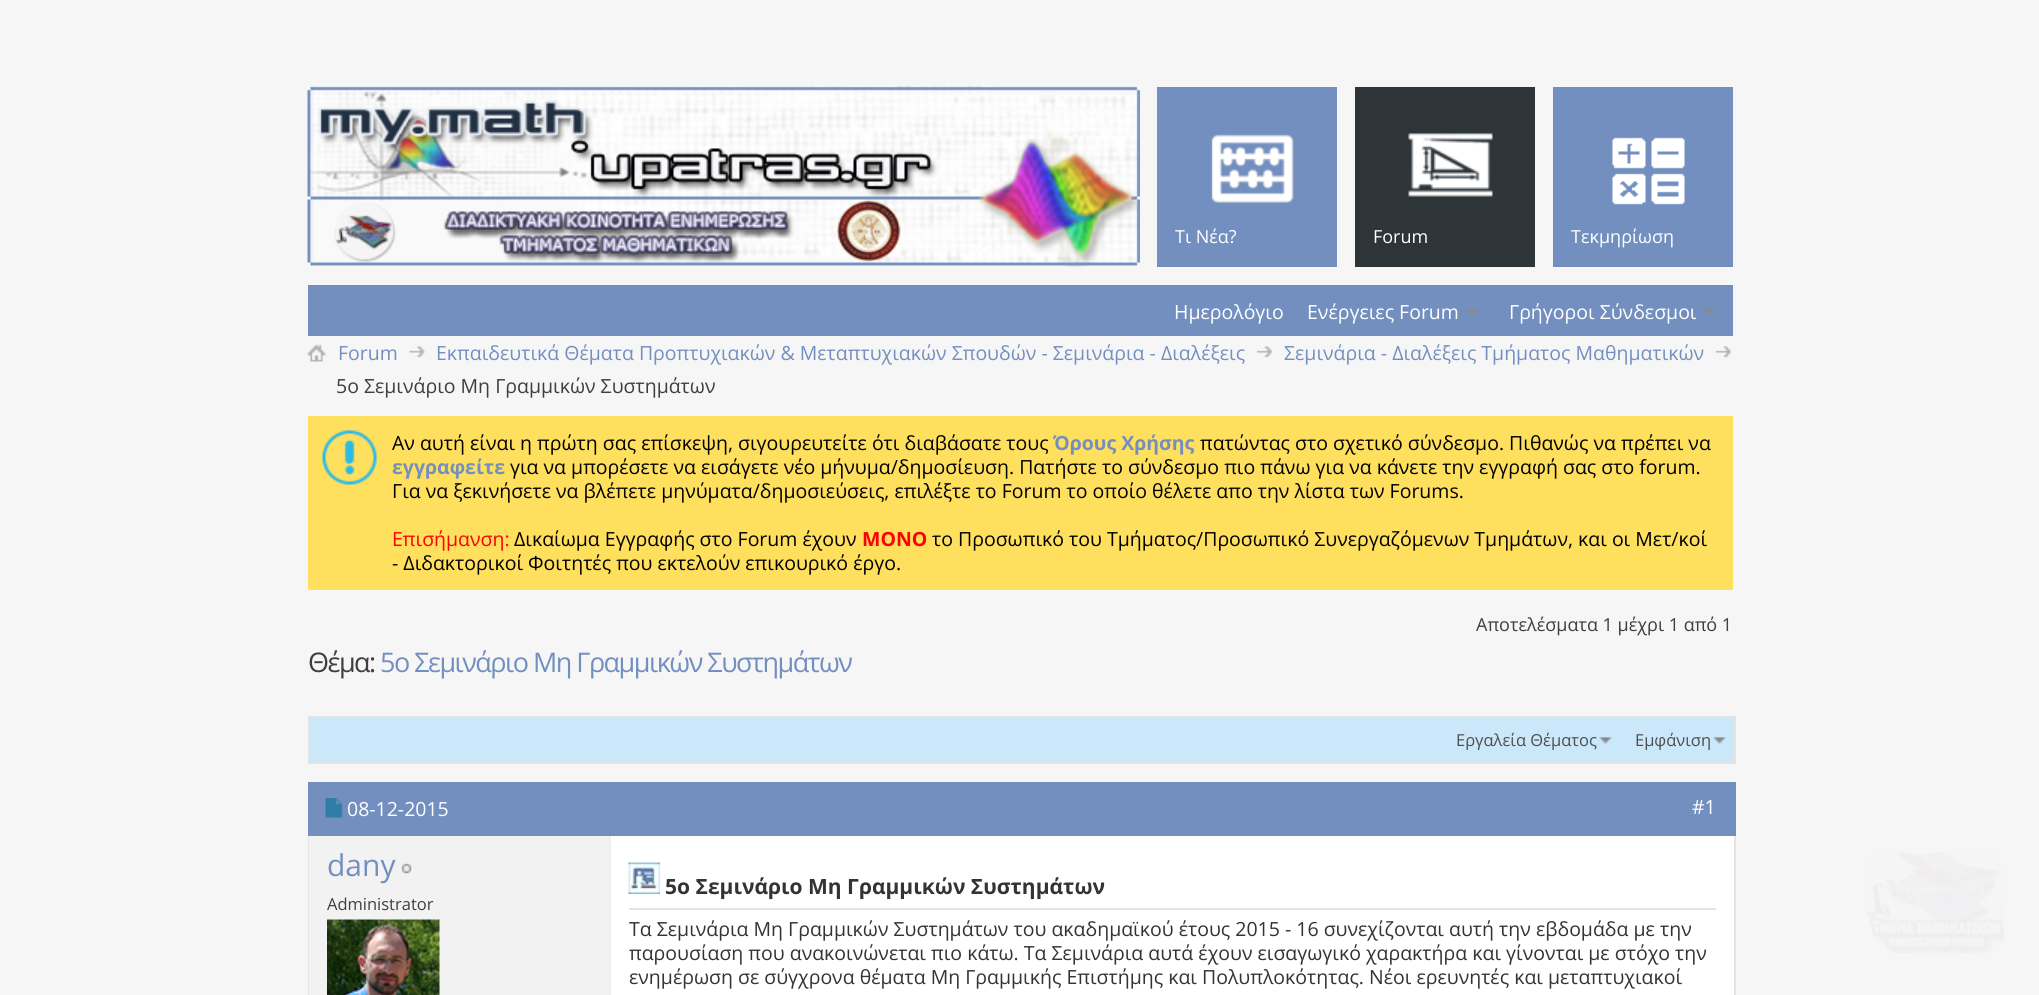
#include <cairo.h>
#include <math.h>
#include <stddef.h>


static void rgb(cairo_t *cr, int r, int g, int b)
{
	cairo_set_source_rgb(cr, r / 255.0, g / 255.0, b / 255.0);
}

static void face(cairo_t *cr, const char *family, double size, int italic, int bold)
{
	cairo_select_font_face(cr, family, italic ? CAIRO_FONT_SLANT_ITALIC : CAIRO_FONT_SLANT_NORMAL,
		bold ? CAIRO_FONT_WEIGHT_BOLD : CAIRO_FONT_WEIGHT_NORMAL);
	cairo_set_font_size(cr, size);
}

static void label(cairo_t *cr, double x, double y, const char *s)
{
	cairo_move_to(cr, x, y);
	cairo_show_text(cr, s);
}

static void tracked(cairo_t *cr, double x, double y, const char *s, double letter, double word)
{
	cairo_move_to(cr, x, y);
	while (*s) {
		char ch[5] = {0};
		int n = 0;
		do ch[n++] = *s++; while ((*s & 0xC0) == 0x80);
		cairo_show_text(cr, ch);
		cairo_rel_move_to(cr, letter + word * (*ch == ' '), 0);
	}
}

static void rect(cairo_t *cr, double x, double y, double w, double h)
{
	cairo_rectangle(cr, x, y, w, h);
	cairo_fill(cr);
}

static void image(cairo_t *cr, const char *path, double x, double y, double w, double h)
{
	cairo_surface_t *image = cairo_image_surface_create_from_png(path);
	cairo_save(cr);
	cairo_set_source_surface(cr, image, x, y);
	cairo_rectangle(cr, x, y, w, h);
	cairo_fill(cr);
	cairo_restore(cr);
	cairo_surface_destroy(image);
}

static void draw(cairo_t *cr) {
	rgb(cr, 246, 246, 246);
	cairo_paint(cr);
	rgb(cr, 115, 143, 191);
	rect(cr, 1138, 87, 595, 180);
	rgb(cr, 246, 246, 246);
	rect(cr, 1139, 87, 18, 180);
	image(cr, "image0.png", 307, 85, 833, 182);
	image(cr, "image1.png", 1211, 134, 83, 69);
	face(cr, "Open Sans", 18, 0, 0);
	rgb(cr, 255, 255, 255);
	label(cr, 1175, 243, "Τι Νέα?");
	rgb(cr, 246, 246, 246);
	rect(cr, 1337, 87, 18, 180);
	rgb(cr, 46, 53, 57);
	rect(cr, 1355, 87, 180, 180);
	image(cr, "image2.png", 1408, 133, 85, 64);
	rgb(cr, 255, 255, 255);
	label(cr, 1373, 243, "Forum");
	rgb(cr, 246, 246, 246);
	rect(cr, 1535, 87, 18, 180);
	image(cr, "image3.png", 1612, 137, 73, 68);
	rgb(cr, 255, 255, 255);
	label(cr, 1571, 243, "Τεκμηρίωση");
	rgb(cr, 115, 143, 191);
	rect(cr, 308, 285, 1425, 51);
	face(cr, "Open Sans", 19.5, 0, 0);
	rgb(cr, 255, 255, 255);
	label(cr, 1174, 319, "Ημερολόγιο");
	label(cr, 1307, 319, "Ενέργειες Forum");
	image(cr, "image4.png", 1465, 308, 13, 7);
	label(cr, 1509, 319, "Γρήγοροι Σύνδεσμοι");
	image(cr, "image5.png", 1703, 308, 12, 7);
	image(cr, "image6.png", 307, 344, 19, 18);
	image(cr, "image7.png", 409, 346, 16, 12);
	rgb(cr, 115, 143, 191);
	label(cr, 338, 360, "Forum");
	image(cr, "image8.png", 1257, 346, 15, 12);
	label(cr, 436, 360, "Εκπαιδευτικά Θέματα Προπτυχιακών & Μεταπτυχιακών Σπουδών - Σεμινάρια - Διαλέξεις");
	image(cr, "image9.png", 1716, 346, 15, 12);
	label(cr, 1284, 360, "Σεμινάρια - Διαλέξεις Τμήματος Μαθηματικών");
	rgb(cr, 62, 62, 62);
	label(cr, 336, 393, "5o Σεμινάριο Μη Γραμμικών Συστημάτων");
	rgb(cr, 255, 223, 94);
	rect(cr, 308, 416, 1425, 174);
	image(cr, "image10.png", 322, 430, 55, 55);
	rgb(cr, 0, 0, 0);
	label(cr, 392, 450, "Αν αυτή είναι η πρώτη σας επίσκεψη, σιγουρευτείτε ότι διαβάσατε τους");
	face(cr, "Open Sans", 19.5, 0, 1);
	rgb(cr, 115, 143, 191);
	label(cr, 1053, 450, "Όρους Χρήσης");
	face(cr, "Open Sans", 19.5, 0, 0);
	rgb(cr, 0, 0, 0);
	label(cr, 1200, 450, "πατώντας στο σχετικό σύνδεσμο. Πιθανώς να πρέπει να");
	face(cr, "Open Sans", 19.5, 0, 1);
	rgb(cr, 115, 143, 191);
	label(cr, 392, 474, "εγγραφείτε");
	face(cr, "Open Sans", 19.5, 0, 0);
	rgb(cr, 0, 0, 0);
	label(cr, 510, 474, "για να μπορέσετε να εισάγετε νέο μήνυμα/δημοσίευση. Πατήστε το σύνδεσμο πιο πάνω για να κάνετε την εγγραφή σας στο forum.");
	label(cr, 392, 498, "Για να ξεκινήσετε να βλέπετε μηνύματα/δημοσιεύσεις, επιλέξτε το Forum το οποίο θέλετε απο την λίστα των Forums.");
	rgb(cr, 255, 0, 0);
	label(cr, 392, 546, "Επισήμανση:");
	rgb(cr, 0, 0, 0);
	label(cr, 514, 546, "Δικαίωμα Εγγραφής στο Forum έχουν");
	face(cr, "Open Sans", 19.5, 0, 1);
	rgb(cr, 255, 0, 0);
	label(cr, 862, 546, "MONO");
	face(cr, "Open Sans", 19.5, 0, 0);
	rgb(cr, 0, 0, 0);
	label(cr, 932, 546, "το Προσωπικό του Τμήματος/Προσωπικό Συνεργαζόμενων Τμημάτων, και οι Μετ/κοί");
	label(cr, 392, 570, "- Διδακτορικοί Φοιτητές που εκτελούν επικουρικό έργο.");
	face(cr, "Open Sans", 18, 0, 0);
	rgb(cr, 62, 62, 62);
	label(cr, 1476, 631, "Αποτελέσματα 1 μέχρι 1 από 1");
	face(cr, "Open Sans", 27, 0, 0);
	tracked(cr, 308, 672, "Θέμα:", -1.5, 0);
	rgb(cr, 115, 143, 191);
	tracked(cr, 380, 672, "5o Σεμινάριο Μη Γραμμικών Συστημάτων", -1.5, 0);
	rgb(cr, 203, 231, 250);
	cairo_rectangle(cr, 309, 717, 1426, 46);
	cairo_fill_preserve(cr);
	rgb(cr, 228, 228, 228);
	cairo_stroke(cr);
	image(cr, "image11.png", 1599, 737, 13, 7);
	face(cr, "Open Sans", 16.5, 0, 0);
	rgb(cr, 78, 78, 78);
	label(cr, 1456, 746, "Εργαλεία Θέματος");
	image(cr, "image11.png", 1713, 737, 13, 7);
	label(cr, 1635, 746, "Εμφάνιση");
	cairo_rectangle(cr, 309, 783, 1426, 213);
	rgb(cr, 228, 228, 228);
	cairo_stroke(cr);
	rgb(cr, 115, 143, 191);
	rect(cr, 308, 782, 1428, 54);
	image(cr, "image12.png", 325, 798, 18, 20);
	face(cr, "Open Sans", 19.5, 0, 0);
	rgb(cr, 255, 255, 255);
	label(cr, 347, 816, "08-12-2015");
	label(cr, 1692, 814, "#1");
	rgb(cr, 242, 242, 242);
	rect(cr, 309, 836, 300, 159);
	face(cr, "Open Sans", 30, 0, 0);
	rgb(cr, 115, 143, 191);
	label(cr, 327, 876, "dany");
	image(cr, "image13.png", 401, 863, 11, 11);
	face(cr, "Open Sans", 16.5, 0, 0);
	rgb(cr, 62, 62, 62);
	label(cr, 327, 910, "Administrator");
	image(cr, "image14.png", 327, 919, 113, 76);
	rgb(cr, 255, 255, 255);
	rect(cr, 611, 836, 1123, 159);
	rgb(cr, 239, 239, 239);
	rect(cr, 609, 836, 2, 159);
	rgb(cr, 228, 228, 228);
	rect(cr, 629, 908, 1087, 2);
	image(cr, "image15.png", 628, 862, 32, 32);
	face(cr, "Open Sans", 21, 0, 1);
	rgb(cr, 51, 51, 51);
	label(cr, 665, 894, "5o Σεμινάριο Μη Γραμμικών Συστημάτων");
	face(cr, "Open Sans", 19.5, 0, 0);
	label(cr, 629, 936, "Tα Σεμινάρια Μη Γραμμικών Συστημάτων του ακαδημαϊκού έτους 2015 - 16 συνεχίζονται αυτή την εβδομάδα με την");
	label(cr, 629, 960, "παρουσίαση που ανακοινώνεται πιο κάτω. Τα Σεμινάρια αυτά έχουν εισαγωγικό χαρακτήρα και γίνονται με στόχο την");
	label(cr, 629, 984, "ενημέρωση σε σύγχρονα θέματα Μη Γραμμικής Επιστήμης και Πολυπλοκότητας. Νέοι ερευνητές και μεταπτυχιακοί");
	image(cr, "image16.png", 1867, 852, 137, 101);
}

int main(void) {
	cairo_surface_t *surface = cairo_image_surface_create(CAIRO_FORMAT_RGB24, 2039, 995);
	cairo_t *cr = cairo_create(surface);
	cairo_font_options_t *options = cairo_font_options_create();
	cairo_font_options_set_hint_metrics(options, CAIRO_HINT_METRICS_OFF);
	cairo_font_options_set_hint_style(options, CAIRO_HINT_STYLE_NONE);
	cairo_set_font_options(cr, options);
	cairo_set_miter_limit(cr, 4);
	draw(cr);
	cairo_surface_write_to_png(surface, "render.png");
	cairo_font_options_destroy(options);
	cairo_destroy(cr);
	cairo_surface_destroy(surface);
	return 0;
}
